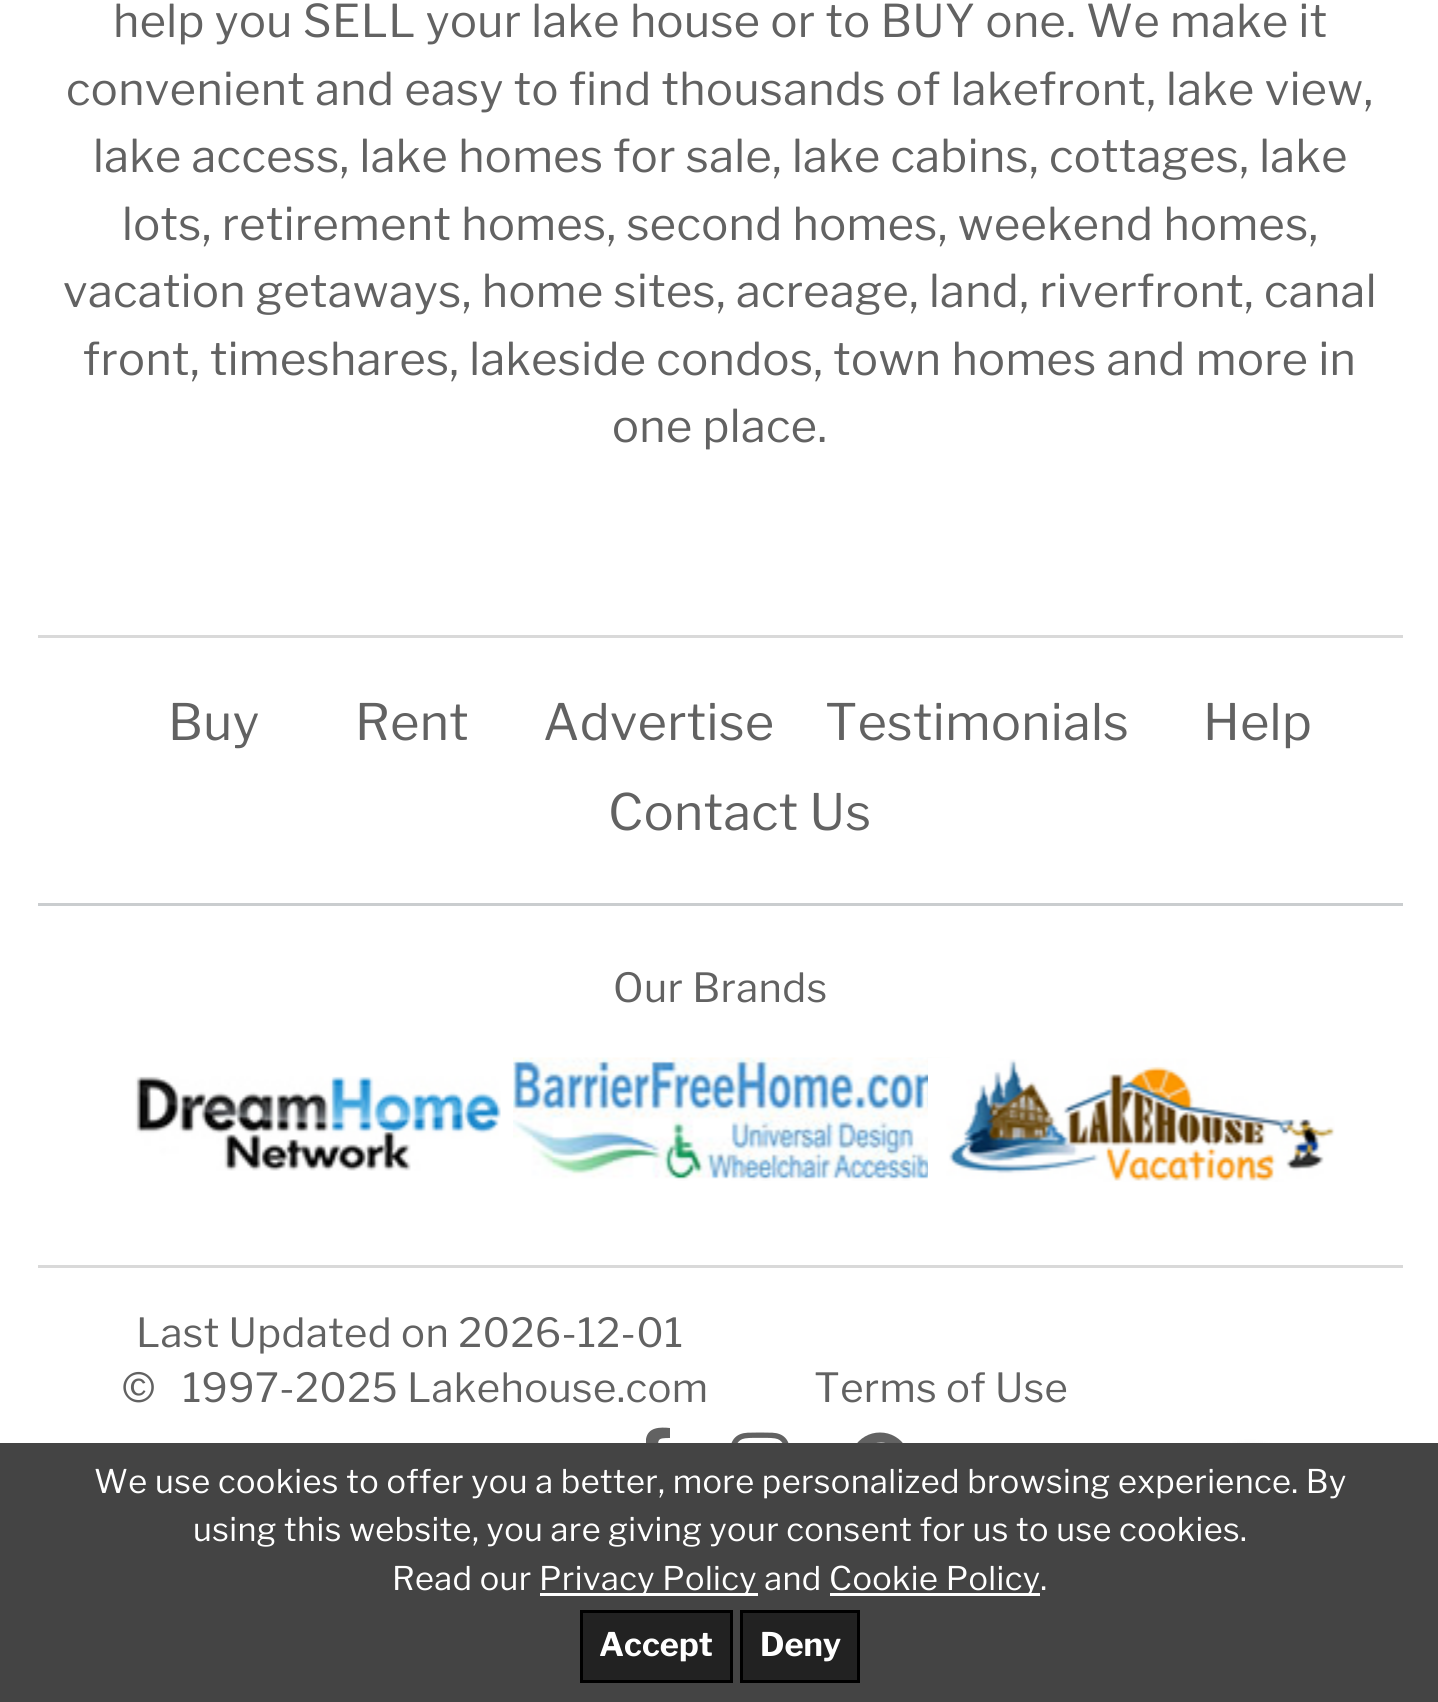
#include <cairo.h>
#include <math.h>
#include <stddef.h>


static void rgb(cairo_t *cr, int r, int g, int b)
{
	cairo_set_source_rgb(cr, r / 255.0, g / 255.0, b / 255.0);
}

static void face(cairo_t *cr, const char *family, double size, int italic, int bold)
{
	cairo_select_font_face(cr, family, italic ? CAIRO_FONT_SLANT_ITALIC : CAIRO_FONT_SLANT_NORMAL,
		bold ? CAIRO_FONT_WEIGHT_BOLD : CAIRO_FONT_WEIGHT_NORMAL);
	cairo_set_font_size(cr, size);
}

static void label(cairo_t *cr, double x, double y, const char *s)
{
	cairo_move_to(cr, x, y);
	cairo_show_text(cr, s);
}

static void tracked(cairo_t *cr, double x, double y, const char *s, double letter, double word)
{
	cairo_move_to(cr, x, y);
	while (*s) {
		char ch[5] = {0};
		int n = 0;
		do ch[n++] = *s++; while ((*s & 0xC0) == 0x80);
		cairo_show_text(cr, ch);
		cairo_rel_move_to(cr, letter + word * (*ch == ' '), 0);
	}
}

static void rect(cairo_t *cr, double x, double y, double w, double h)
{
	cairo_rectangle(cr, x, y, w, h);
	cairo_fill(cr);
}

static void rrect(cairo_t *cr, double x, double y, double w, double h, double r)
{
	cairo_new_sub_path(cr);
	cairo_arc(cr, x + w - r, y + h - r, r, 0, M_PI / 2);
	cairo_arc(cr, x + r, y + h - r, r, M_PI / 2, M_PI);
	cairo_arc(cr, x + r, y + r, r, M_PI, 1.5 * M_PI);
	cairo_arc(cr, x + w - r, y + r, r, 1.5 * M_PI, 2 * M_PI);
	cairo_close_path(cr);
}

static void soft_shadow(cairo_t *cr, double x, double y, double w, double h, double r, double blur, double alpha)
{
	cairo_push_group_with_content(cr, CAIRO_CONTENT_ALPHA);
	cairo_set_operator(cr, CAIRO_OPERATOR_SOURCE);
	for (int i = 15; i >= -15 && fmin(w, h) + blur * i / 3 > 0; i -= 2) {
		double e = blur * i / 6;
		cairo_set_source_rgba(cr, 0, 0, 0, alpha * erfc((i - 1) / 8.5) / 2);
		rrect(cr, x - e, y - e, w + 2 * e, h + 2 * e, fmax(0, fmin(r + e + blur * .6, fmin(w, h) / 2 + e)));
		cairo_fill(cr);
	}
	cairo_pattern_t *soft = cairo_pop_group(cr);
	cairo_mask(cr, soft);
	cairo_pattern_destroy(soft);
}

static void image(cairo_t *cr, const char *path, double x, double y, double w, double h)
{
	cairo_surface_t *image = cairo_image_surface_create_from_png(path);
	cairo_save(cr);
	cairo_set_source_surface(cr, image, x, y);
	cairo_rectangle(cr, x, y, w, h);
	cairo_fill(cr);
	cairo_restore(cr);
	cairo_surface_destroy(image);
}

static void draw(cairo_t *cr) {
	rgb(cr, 255, 255, 255);
	cairo_paint(cr);
	face(cr, "Libre Franklin", 45, 0, 0);
	rgb(cr, 98, 98, 98);
	tracked(cr, 113, 37, "help you SELL your lake house or to BUY one. We make it", 0.4, 0);
	tracked(cr, 66, 105, "convenient and easy to find thousands of lakefront, lake view,", 0.4, 0);
	tracked(cr, 93, 172, "lake access, lake homes for sale, lake cabins, cottages, lake", 0.4, 0);
	tracked(cr, 122, 240, "lots, retirement homes, second homes, weekend homes,", 0.4, 0);
	tracked(cr, 63, 307, "vacation getaways, home sites, acreage, land, riverfront, canal", 0.4, 0);
	tracked(cr, 83, 375, "front, timeshares, lakeside condos, town homes and more in", 0.4, 0);
	tracked(cr, 612, 442, "one place.", 0.4, 0);
	rgb(cr, 217, 217, 217);
	rect(cr, 38, 635, 1365, 3);
	face(cr, "Libre Franklin", 50, 0, 0);
	rgb(cr, 98, 98, 98);
	tracked(cr, 168, 740, "Buy", 0.4, 0);
	tracked(cr, 355, 740, "Rent", 0.4, 0);
	tracked(cr, 543, 740, "Advertise", 0.4, 0);
	tracked(cr, 825, 740, "Testimonials", 0.4, 0);
	tracked(cr, 1203, 740, "Help", 0.4, 0);
	tracked(cr, 608, 830, "Contact Us", 0.4, 0);
	rgb(cr, 202, 205, 207);
	rect(cr, 38, 903, 1365, 3);
	face(cr, "Libre Franklin", 40, 0, 0);
	rgb(cr, 98, 98, 98);
	tracked(cr, 613, 1002, "Our Brands", 0.4, 0);
	image(cr, "image0.png", 135, 1076, 366, 95);
	image(cr, "image1.png", 513, 1057, 438, 124);
	image(cr, "image2.png", 928, 1058, 407, 124);
	rgb(cr, 217, 217, 217);
	rect(cr, 38, 1265, 1365, 3);
	rgb(cr, 98, 98, 98);
	tracked(cr, 136, 1347, "Last Updated on 2026-12-01", 0.4, 0);
	tracked(cr, 122, 1402, "©   1997-2025 Lakehouse.com", 0.4, 0);
	tracked(cr, 814, 1402, "Terms of Use", 0.4, 0);
	cairo_new_path(cr);
	cairo_move_to(cr, 670, 1428);
	cairo_line_to(cr, 670, 1438);
	cairo_curve_to(cr, 657, 1438, 658, 1439, 658, 1451);
	cairo_line_to(cr, 670, 1451);
	cairo_line_to(cr, 668, 1463);
	cairo_line_to(cr, 658, 1463);
	cairo_line_to(cr, 658, 1492);
	cairo_line_to(cr, 646, 1492);
	cairo_line_to(cr, 646, 1463);
	cairo_line_to(cr, 636, 1463);
	cairo_line_to(cr, 636, 1451);
	cairo_line_to(cr, 646, 1451);
	cairo_line_to(cr, 646, 1439);
	cairo_curve_to(cr, 648, 1427, 660, 1427, 670, 1428);
	cairo_close_path(cr);
	cairo_fill(cr);
	image(cr, "image3.png", 731, 1432, 58, 11);
	image(cr, "image4.png", 857, 1432, 46, 11);
	rgb(cr, 0, 0, 0);
	soft_shadow(cr, 1180, 1443, 140, 140, 70, 2.5, 0.05);
	rgb(cr, 68, 68, 68);
	rect(cr, 0, 1443, 1438, 259);
	face(cr, "Libre Franklin", 32.5, 0, 0);
	rgb(cr, 255, 255, 255);
	tracked(cr, 94, 1493, "We use cookies to offer you a better, more personalized browsing experience. By", 0.4, 0);
	tracked(cr, 193, 1541, "using this website, you are giving your consent for us to use cookies.", 0.4, 0);
	tracked(cr, 392, 1590, "Read our", 0.4, 0);
	rect(cr, 540, 1593, 218, 3);
	tracked(cr, 539, 1590, "Privacy Policy and", 0.4, 0);
	rect(cr, 830, 1593, 210, 3);
	tracked(cr, 829, 1590, "Cookie Policy.", 0.4, 0);
	rgb(cr, 34, 34, 34);
	cairo_rectangle(cr, 581.5, 1611.5, 150, 70);
	cairo_fill_preserve(cr);
	rgb(cr, 0, 0, 0);
	cairo_set_line_width(cr, 3);
	cairo_stroke(cr);
	face(cr, "Libre Franklin", 32.5, 0, 1);
	rgb(cr, 255, 255, 255);
	label(cr, 599, 1656, "Accept");
	rgb(cr, 34, 34, 34);
	cairo_rectangle(cr, 741.5, 1611.5, 117, 70);
	cairo_fill_preserve(cr);
	rgb(cr, 0, 0, 0);
	cairo_stroke(cr);
	rgb(cr, 255, 255, 255);
	label(cr, 760, 1656, "Deny");
}

int main(void) {
	cairo_surface_t *surface = cairo_image_surface_create(CAIRO_FORMAT_RGB24, 1438, 1702);
	cairo_t *cr = cairo_create(surface);
	cairo_font_options_t *options = cairo_font_options_create();
	cairo_font_options_set_hint_metrics(options, CAIRO_HINT_METRICS_OFF);
	cairo_font_options_set_hint_style(options, CAIRO_HINT_STYLE_NONE);
	cairo_set_font_options(cr, options);
	cairo_set_miter_limit(cr, 4);
	draw(cr);
	cairo_surface_write_to_png(surface, "render.png");
	cairo_font_options_destroy(options);
	cairo_destroy(cr);
	cairo_surface_destroy(surface);
	return 0;
}
